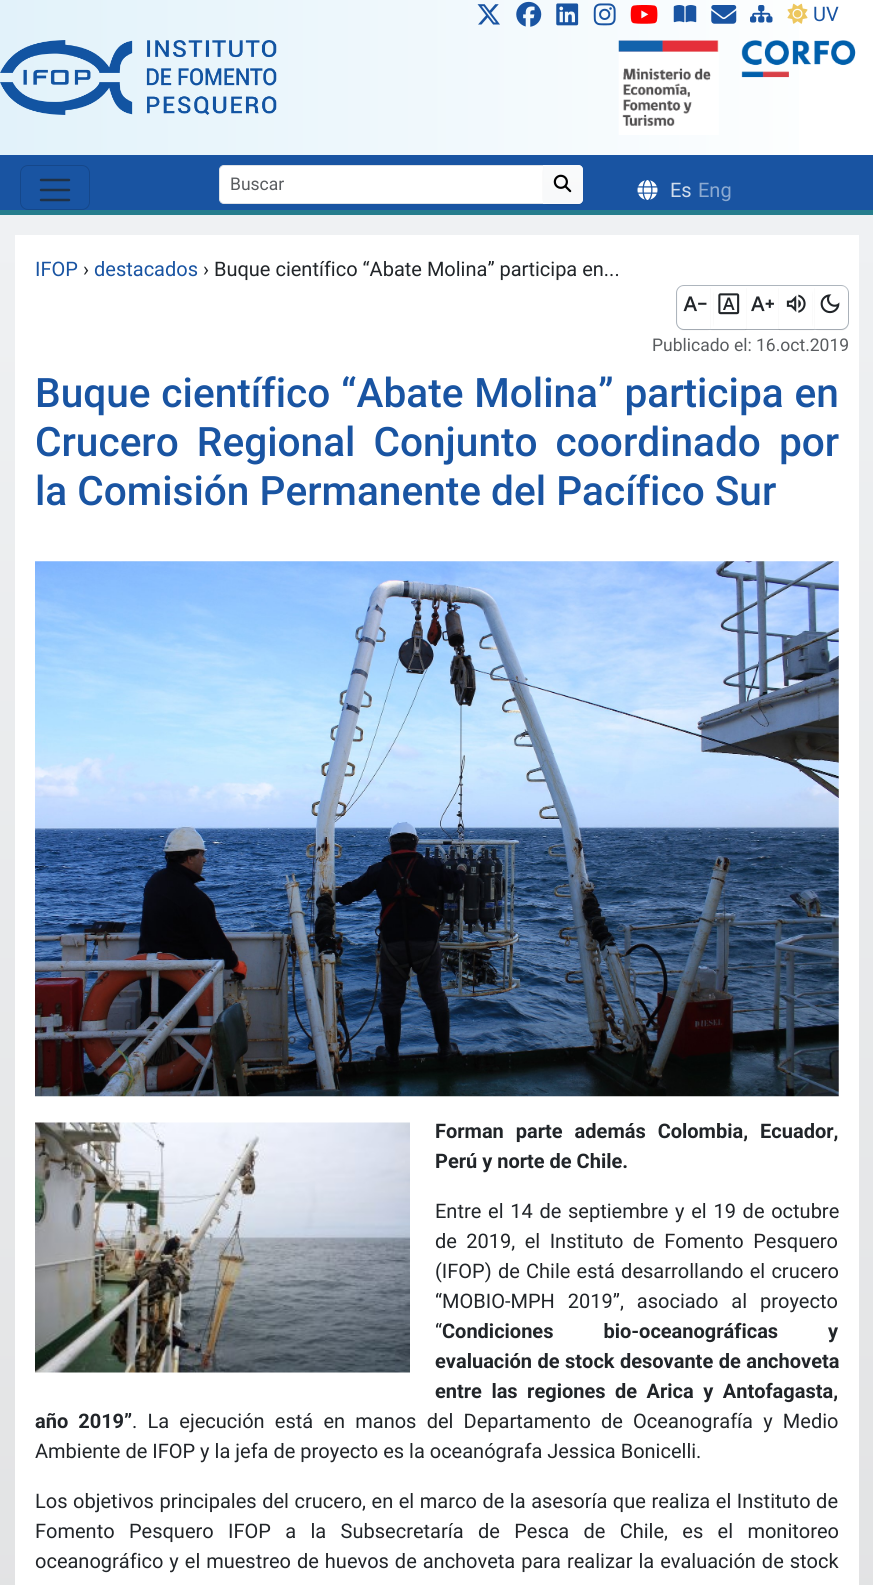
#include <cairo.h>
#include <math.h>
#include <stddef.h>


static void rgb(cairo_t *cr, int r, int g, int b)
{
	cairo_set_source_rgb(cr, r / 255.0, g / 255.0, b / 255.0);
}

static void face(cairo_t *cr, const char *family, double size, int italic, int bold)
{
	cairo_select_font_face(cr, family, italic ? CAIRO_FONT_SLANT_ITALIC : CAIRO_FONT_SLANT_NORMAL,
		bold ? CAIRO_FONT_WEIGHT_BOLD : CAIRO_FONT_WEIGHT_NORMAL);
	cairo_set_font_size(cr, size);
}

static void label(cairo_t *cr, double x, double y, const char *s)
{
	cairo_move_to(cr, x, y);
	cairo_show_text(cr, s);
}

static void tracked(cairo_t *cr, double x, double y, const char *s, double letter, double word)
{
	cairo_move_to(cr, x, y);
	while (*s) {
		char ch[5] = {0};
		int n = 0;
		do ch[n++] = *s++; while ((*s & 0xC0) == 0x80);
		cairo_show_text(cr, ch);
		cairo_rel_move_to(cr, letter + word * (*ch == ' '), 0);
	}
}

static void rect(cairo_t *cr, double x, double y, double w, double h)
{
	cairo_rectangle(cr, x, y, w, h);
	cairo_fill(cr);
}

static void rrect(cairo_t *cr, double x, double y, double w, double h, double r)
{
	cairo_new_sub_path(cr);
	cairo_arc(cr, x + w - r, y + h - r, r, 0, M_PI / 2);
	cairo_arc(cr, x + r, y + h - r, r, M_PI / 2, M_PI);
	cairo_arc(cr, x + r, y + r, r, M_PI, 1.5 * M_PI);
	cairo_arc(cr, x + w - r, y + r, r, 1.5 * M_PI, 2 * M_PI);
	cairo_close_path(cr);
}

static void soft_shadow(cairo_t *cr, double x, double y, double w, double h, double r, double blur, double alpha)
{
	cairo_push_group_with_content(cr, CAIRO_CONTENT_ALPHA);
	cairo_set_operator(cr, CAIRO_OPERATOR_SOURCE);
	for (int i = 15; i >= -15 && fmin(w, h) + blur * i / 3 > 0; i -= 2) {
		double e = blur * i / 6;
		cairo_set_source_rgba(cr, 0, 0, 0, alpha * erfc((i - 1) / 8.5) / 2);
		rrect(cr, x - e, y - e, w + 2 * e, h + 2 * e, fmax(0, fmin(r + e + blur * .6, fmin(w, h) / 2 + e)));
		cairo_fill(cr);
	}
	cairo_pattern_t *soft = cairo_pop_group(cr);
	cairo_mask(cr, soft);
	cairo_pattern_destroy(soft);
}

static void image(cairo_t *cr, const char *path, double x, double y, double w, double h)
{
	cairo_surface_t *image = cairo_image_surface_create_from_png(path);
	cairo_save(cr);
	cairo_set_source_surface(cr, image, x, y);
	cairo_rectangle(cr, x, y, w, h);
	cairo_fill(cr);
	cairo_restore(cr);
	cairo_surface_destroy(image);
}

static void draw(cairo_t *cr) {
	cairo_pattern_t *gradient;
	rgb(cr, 255, 255, 255);
	cairo_paint(cr);
	gradient = cairo_pattern_create_linear(0, 108, 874, 107);
	cairo_pattern_add_color_stop_rgba(gradient, 0, 0.886, 0.949, 0.98, 1);
	cairo_pattern_add_color_stop_rgba(gradient, 1, 1, 1, 1, 1);
	cairo_set_source(cr, gradient);
	cairo_pattern_destroy(gradient);
	rect(cr, 0, 0, 799, 155);
	image(cr, "image0.png", 477, 4, 23, 21);
	image(cr, "image1.png", 516, 1, 26, 26);
	image(cr, "image2.png", 556, 3, 23, 23);
	image(cr, "image3.png", 593, 3, 23, 23);
	image(cr, "image4.png", 630, 5, 28, 19);
	image(cr, "image5.png", 673, 5, 24, 18);
	image(cr, "image6.png", 711, 5, 26, 19);
	image(cr, "image7.png", 750, 5, 23, 18);
	image(cr, "image8.png", 787, 3, 21, 21);
	face(cr, "Roboto", 20, 0, 0);
	rgb(cr, 25, 84, 162);
	label(cr, 813, 21, "UV");
	image(cr, "image9.png", 0, 40, 277, 75);
	image(cr, "image10.png", 618, 40, 101, 95);
	image(cr, "image11.png", 741, 40, 115, 38);
	rect(cr, 0, 155, 873, 55);
	rgb(cr, 37, 125, 141);
	rect(cr, 0, 210, 873, 5);
	rrect(cr, 20.5, 165.5, 69, 44, 7.5);
	rgb(cr, 21, 71, 138);
	cairo_set_line_width(cr, 1);
	cairo_stroke(cr);
	cairo_new_path(cr);
	cairo_move_to(cr, 41, 180);
	cairo_line_to(cr, 69, 180);
	cairo_move_to(cr, 41, 190);
	cairo_line_to(cr, 69, 190);
	cairo_move_to(cr, 41, 200);
	cairo_line_to(cr, 69, 200);
	rgb(cr, 31, 49, 71);
	cairo_set_line_width(cr, 2.5);
	cairo_set_line_cap(cr, CAIRO_LINE_CAP_ROUND);
	cairo_stroke(cr);
	rgb(cr, 255, 255, 255);
	cairo_new_path(cr);
	cairo_move_to(cr, 224, 165.5);
	cairo_line_to(cr, 543.5, 165.5);
	cairo_line_to(cr, 543.5, 203.5);
	cairo_line_to(cr, 224, 203.5);
	cairo_curve_to(cr, 221.5, 203.5, 219.5, 201.5, 219.5, 199);
	cairo_line_to(cr, 219.5, 170);
	cairo_curve_to(cr, 219.5, 167.5, 221.5, 165.5, 224, 165.5);
	cairo_close_path(cr);
	cairo_fill_preserve(cr);
	rgb(cr, 222, 226, 230);
	cairo_set_line_width(cr, 1);
	cairo_set_line_cap(cr, CAIRO_LINE_CAP_BUTT);
	cairo_stroke(cr);
	face(cr, "Roboto", 17.5, 0, 0);
	rgb(cr, 89, 92, 95);
	label(cr, 230, 190, "Buscar");
	rgb(cr, 0, 0, 0);
	soft_shadow(cr, 543, 166, 40, 39, 5, 0.5, 0.07);
	rgb(cr, 248, 249, 250);
	cairo_new_path(cr);
	cairo_move_to(cr, 543, 165);
	cairo_line_to(cr, 578, 165);
	cairo_curve_to(cr, 581, 165, 583, 167, 583, 170);
	cairo_line_to(cr, 583, 199);
	cairo_curve_to(cr, 583, 202, 581, 204, 578, 204);
	cairo_line_to(cr, 543, 204);
	cairo_close_path(cr);
	cairo_fill(cr);
	cairo_save(cr);
	cairo_new_path(cr);
	cairo_move_to(cr, 543, 165);
	cairo_line_to(cr, 578, 165);
	cairo_curve_to(cr, 581, 165, 583, 167, 583, 170);
	cairo_line_to(cr, 583, 199);
	cairo_curve_to(cr, 583, 202, 581, 204, 578, 204);
	cairo_line_to(cr, 543, 204);
	cairo_close_path(cr);
	cairo_clip(cr);
	gradient = cairo_pattern_create_linear(563, 166, 563, 203);
	cairo_pattern_add_color_stop_rgba(gradient, 0, 1, 1, 1, 0.15);
	cairo_pattern_add_color_stop_rgba(gradient, 1, 1, 1, 1, 0);
	cairo_set_source(cr, gradient);
	cairo_pattern_destroy(gradient);
	rect(cr, 544, 166, 39, 32);
	cairo_restore(cr);
	cairo_new_path(cr);
	cairo_move_to(cr, 543.5, 165.5);
	cairo_line_to(cr, 578, 165.5);
	cairo_curve_to(cr, 580.5, 165.5, 582.5, 167.5, 582.5, 170);
	cairo_line_to(cr, 582.5, 199);
	cairo_curve_to(cr, 582.5, 201.5, 580.5, 203.5, 578, 203.5);
	cairo_line_to(cr, 543.5, 203.5);
	cairo_close_path(cr);
	cairo_stroke(cr);
	image(cr, "image12.png", 553, 174, 19, 19);
	image(cr, "image13.png", 637, 180, 21, 20);
	face(cr, "Roboto", 20, 0, 0);
	rgb(cr, 209, 221, 236);
	label(cr, 670, 197, "Es");
	rgb(cr, 140, 170, 209);
	label(cr, 698, 197, "Eng");
	gradient = cairo_pattern_create_linear(437, 215, 437, 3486);
	cairo_pattern_add_color_stop_rgba(gradient, 0, 0.937, 0.945, 0.953, 1);
	cairo_pattern_add_color_stop_rgba(gradient, 1, 0.82, 0.816, 0.816, 1);
	cairo_set_source(cr, gradient);
	cairo_pattern_destroy(gradient);
	rect(cr, 0, 215, 873, 1370);
	rgb(cr, 255, 255, 255);
	rect(cr, 15, 235, 844, 1350);
	rgb(cr, 25, 84, 162);
	label(cr, 35, 276, "IFOP");
	rgb(cr, 33, 37, 41);
	label(cr, 83, 276, "›");
	rgb(cr, 25, 84, 162);
	label(cr, 94, 276, "destacados");
	rgb(cr, 33, 37, 41);
	label(cr, 203, 276, "› Buque científico “Abate Molina” participa en...");
	rrect(cr, 676.5, 285.5, 172, 44, 7.5);
	rgb(cr, 173, 181, 189);
	cairo_stroke(cr);
	cairo_save(cr);
	cairo_set_fill_rule(cr, CAIRO_FILL_RULE_EVEN_ODD);
	cairo_new_path(cr);
	cairo_move_to(cr, 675, 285);
	cairo_line_to(cr, 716, 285);
	cairo_line_to(cr, 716, 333);
	cairo_line_to(cr, 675, 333);
	cairo_close_path(cr);
	cairo_move_to(cr, 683, 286);
	cairo_line_to(cr, 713, 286);
	cairo_line_to(cr, 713, 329);
	cairo_line_to(cr, 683, 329);
	cairo_curve_to(cr, 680, 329, 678, 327, 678, 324);
	cairo_line_to(cr, 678, 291);
	cairo_curve_to(cr, 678, 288, 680, 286, 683, 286);
	cairo_close_path(cr);
	cairo_clip(cr);
	rgb(cr, 0, 0, 0);
	soft_shadow(cr, 678, 288, 35, 42, 5, 0.5, 0.07);
	cairo_restore(cr);
	gradient = cairo_pattern_create_linear(695, 286, 695, 329);
	cairo_pattern_add_color_stop_rgba(gradient, 0, 1, 1, 1, 0.15);
	cairo_pattern_add_color_stop_rgba(gradient, 1, 1, 1, 1, 0);
	cairo_set_source(cr, gradient);
	cairo_pattern_destroy(gradient);
	cairo_new_path(cr);
	cairo_move_to(cr, 683, 286);
	cairo_line_to(cr, 713, 286);
	cairo_line_to(cr, 713, 329);
	cairo_line_to(cr, 683, 329);
	cairo_curve_to(cr, 680, 329, 678, 327, 678, 324);
	cairo_line_to(cr, 678, 291);
	cairo_curve_to(cr, 678, 288, 680, 286, 683, 286);
	cairo_close_path(cr);
	cairo_fill(cr);
	cairo_set_source_rgba(cr, 1, 1, 1, 0.15);
	cairo_new_path(cr);
	cairo_move_to(cr, 682, 288);
	cairo_line_to(cr, 712, 288);
	cairo_line_to(cr, 712, 329);
	cairo_line_to(cr, 713, 329);
	cairo_line_to(cr, 713, 286);
	cairo_line_to(cr, 693, 286);
	cairo_curve_to(cr, 687, 286, 678, 284, 678, 292);
	cairo_curve_to(cr, 678, 290, 680, 288, 682, 288);
	cairo_close_path(cr);
	cairo_fill(cr);
	image(cr, "image14.png", 683, 296, 24, 16);
	cairo_save(cr);
	cairo_set_fill_rule(cr, CAIRO_FILL_RULE_EVEN_ODD);
	cairo_new_path(cr);
	cairo_move_to(cr, 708, 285);
	cairo_line_to(cr, 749, 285);
	cairo_line_to(cr, 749, 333);
	cairo_line_to(cr, 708, 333);
	cairo_close_path(cr);
	cairo_move_to(cr, 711, 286);
	cairo_line_to(cr, 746, 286);
	cairo_line_to(cr, 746, 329);
	cairo_line_to(cr, 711, 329);
	cairo_close_path(cr);
	cairo_clip(cr);
	rgb(cr, 0, 0, 0);
	soft_shadow(cr, 711, 288, 35, 42, 0, 0.5, 0.07);
	cairo_restore(cr);
	image(cr, "image15.png", 718, 293, 22, 22);
	cairo_save(cr);
	cairo_rectangle(cr, 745, 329, 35, 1);
	cairo_clip(cr);
	rgb(cr, 0, 0, 0);
	soft_shadow(cr, 745, 288, 35, 42, 0, 0.5, 0.07);
	cairo_restore(cr);
	image(cr, "image16.png", 751, 296, 23, 16);
	cairo_save(cr);
	cairo_set_fill_rule(cr, CAIRO_FILL_RULE_EVEN_ODD);
	cairo_new_path(cr);
	cairo_move_to(cr, 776, 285);
	cairo_line_to(cr, 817, 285);
	cairo_line_to(cr, 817, 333);
	cairo_line_to(cr, 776, 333);
	cairo_close_path(cr);
	cairo_move_to(cr, 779, 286);
	cairo_line_to(cr, 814, 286);
	cairo_line_to(cr, 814, 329);
	cairo_line_to(cr, 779, 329);
	cairo_close_path(cr);
	cairo_clip(cr);
	rgb(cr, 0, 0, 0);
	soft_shadow(cr, 779, 288, 35, 42, 0, 0.5, 0.07);
	cairo_restore(cr);
	image(cr, "image17.png", 786, 294, 20, 19);
	cairo_save(cr);
	cairo_set_fill_rule(cr, CAIRO_FILL_RULE_EVEN_ODD);
	cairo_new_path(cr);
	cairo_move_to(cr, 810, 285);
	cairo_line_to(cr, 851, 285);
	cairo_line_to(cr, 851, 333);
	cairo_line_to(cr, 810, 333);
	cairo_close_path(cr);
	cairo_move_to(cr, 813, 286);
	cairo_line_to(cr, 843, 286);
	cairo_curve_to(cr, 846, 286, 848, 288, 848, 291);
	cairo_line_to(cr, 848, 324);
	cairo_curve_to(cr, 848, 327, 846, 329, 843, 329);
	cairo_line_to(cr, 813, 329);
	cairo_close_path(cr);
	cairo_clip(cr);
	rgb(cr, 0, 0, 0);
	soft_shadow(cr, 813, 288, 35, 42, 5, 0.5, 0.07);
	cairo_restore(cr);
	gradient = cairo_pattern_create_linear(830, 286, 830, 329);
	cairo_pattern_add_color_stop_rgba(gradient, 0, 1, 1, 1, 0.15);
	cairo_pattern_add_color_stop_rgba(gradient, 1, 1, 1, 1, 0);
	cairo_set_source(cr, gradient);
	cairo_pattern_destroy(gradient);
	cairo_new_path(cr);
	cairo_move_to(cr, 813, 286);
	cairo_line_to(cr, 843, 286);
	cairo_curve_to(cr, 846, 286, 848, 288, 848, 291);
	cairo_line_to(cr, 848, 324);
	cairo_curve_to(cr, 848, 327, 846, 329, 843, 329);
	cairo_line_to(cr, 813, 329);
	cairo_close_path(cr);
	cairo_fill(cr);
	cairo_set_source_rgba(cr, 1, 1, 1, 0.15);
	cairo_new_path(cr);
	cairo_move_to(cr, 813, 286);
	cairo_line_to(cr, 813, 288);
	cairo_line_to(cr, 842, 288);
	cairo_curve_to(cr, 845, 288, 848, 290, 848, 292);
	cairo_curve_to(cr, 848, 289, 846.5, 286, 843, 286);
	cairo_close_path(cr);
	cairo_fill(cr);
	image(cr, "image18.png", 820, 294, 20, 20);
	face(cr, "Roboto", 17.5, 0, 0);
	rgb(cr, 89, 92, 95);
	label(cr, 652, 351, "Publicado el: 16.oct.2019");
	face(cr, "Roboto Medium", 40.6, 0, 0);
	rgb(cr, 25, 84, 162);
	tracked(cr, 35, 407, "Buque científico “Abate Molina” participa en", 0, 0.75);
	tracked(cr, 35, 456, "Crucero Regional Conjunto coordinado por", 0, 8);
	label(cr, 35, 505, "la Comisión Permanente del Pacífico Sur");
	image(cr, "image19.png", 35, 561, 804, 536);
	image(cr, "image20.png", 35, 1122, 375, 251);
	face(cr, "Roboto", 20, 0, 1);
	rgb(cr, 33, 37, 41);
	tracked(cr, 435, 1138, "Forman parte además Colombia, Ecuador,", 0, 7);
	label(cr, 435, 1168, "Perú y norte de Chile.");
	face(cr, "Roboto", 20, 0, 0);
	tracked(cr, 435, 1218, "Entre el 14 de septiembre y el 19 de octubre", 0, 1.75);
	tracked(cr, 435, 1248, "de 2019, el Instituto de Fomento Pesquero", 0, 4.5);
	tracked(cr, 435, 1278, "(IFOP) de Chile está desarrollando el crucero", 0, 1.25);
	tracked(cr, 435, 1308, "“MOBIO-MPH 2019”, asociado al proyecto", 0, 8);
	label(cr, 435, 1338, "“");
	face(cr, "Roboto", 20, 0, 1);
	tracked(cr, 442, 1338, "Condiciones bio-oceanográficas y", 0, 45);
	tracked(cr, 435, 1368, "evaluación de stock desovante de anchoveta", 0, 0.5);
	tracked(cr, 435, 1398, "entre las regiones de Arica y Antofagasta,", 0, 4.5);
	tracked(cr, 35, 1428, "año 2019”", 0, 5);
	face(cr, "Roboto", 20, 0, 0);
	tracked(cr, 132, 1428, ". La ejecución está en manos del Departamento de Oceanografía y Medio", 0, 5.25);
	label(cr, 35, 1458, "Ambiente de IFOP y la jefa de proyecto es la oceanógrafa Jessica Bonicelli.");
	tracked(cr, 35, 1508, "Los objetivos principales del crucero, en el marco de la asesoría que realiza el Instituto de", 0, 0.6);
	tracked(cr, 35, 1538, "Fomento Pesquero IFOP a la Subsecretaría de Pesca de Chile, es el monitoreo", 0, 9.4);
	tracked(cr, 35, 1568, "oceanográfico y el muestreo de huevos de anchoveta para realizar la evaluación de stock", 0, 1);
}

int main(void) {
	cairo_surface_t *surface = cairo_image_surface_create(CAIRO_FORMAT_RGB24, 873, 1585);
	cairo_t *cr = cairo_create(surface);
	cairo_font_options_t *options = cairo_font_options_create();
	cairo_font_options_set_hint_metrics(options, CAIRO_HINT_METRICS_OFF);
	cairo_font_options_set_hint_style(options, CAIRO_HINT_STYLE_NONE);
	cairo_set_font_options(cr, options);
	cairo_set_miter_limit(cr, 4);
	draw(cr);
	cairo_surface_write_to_png(surface, "render.png");
	cairo_font_options_destroy(options);
	cairo_destroy(cr);
	cairo_surface_destroy(surface);
	return 0;
}
